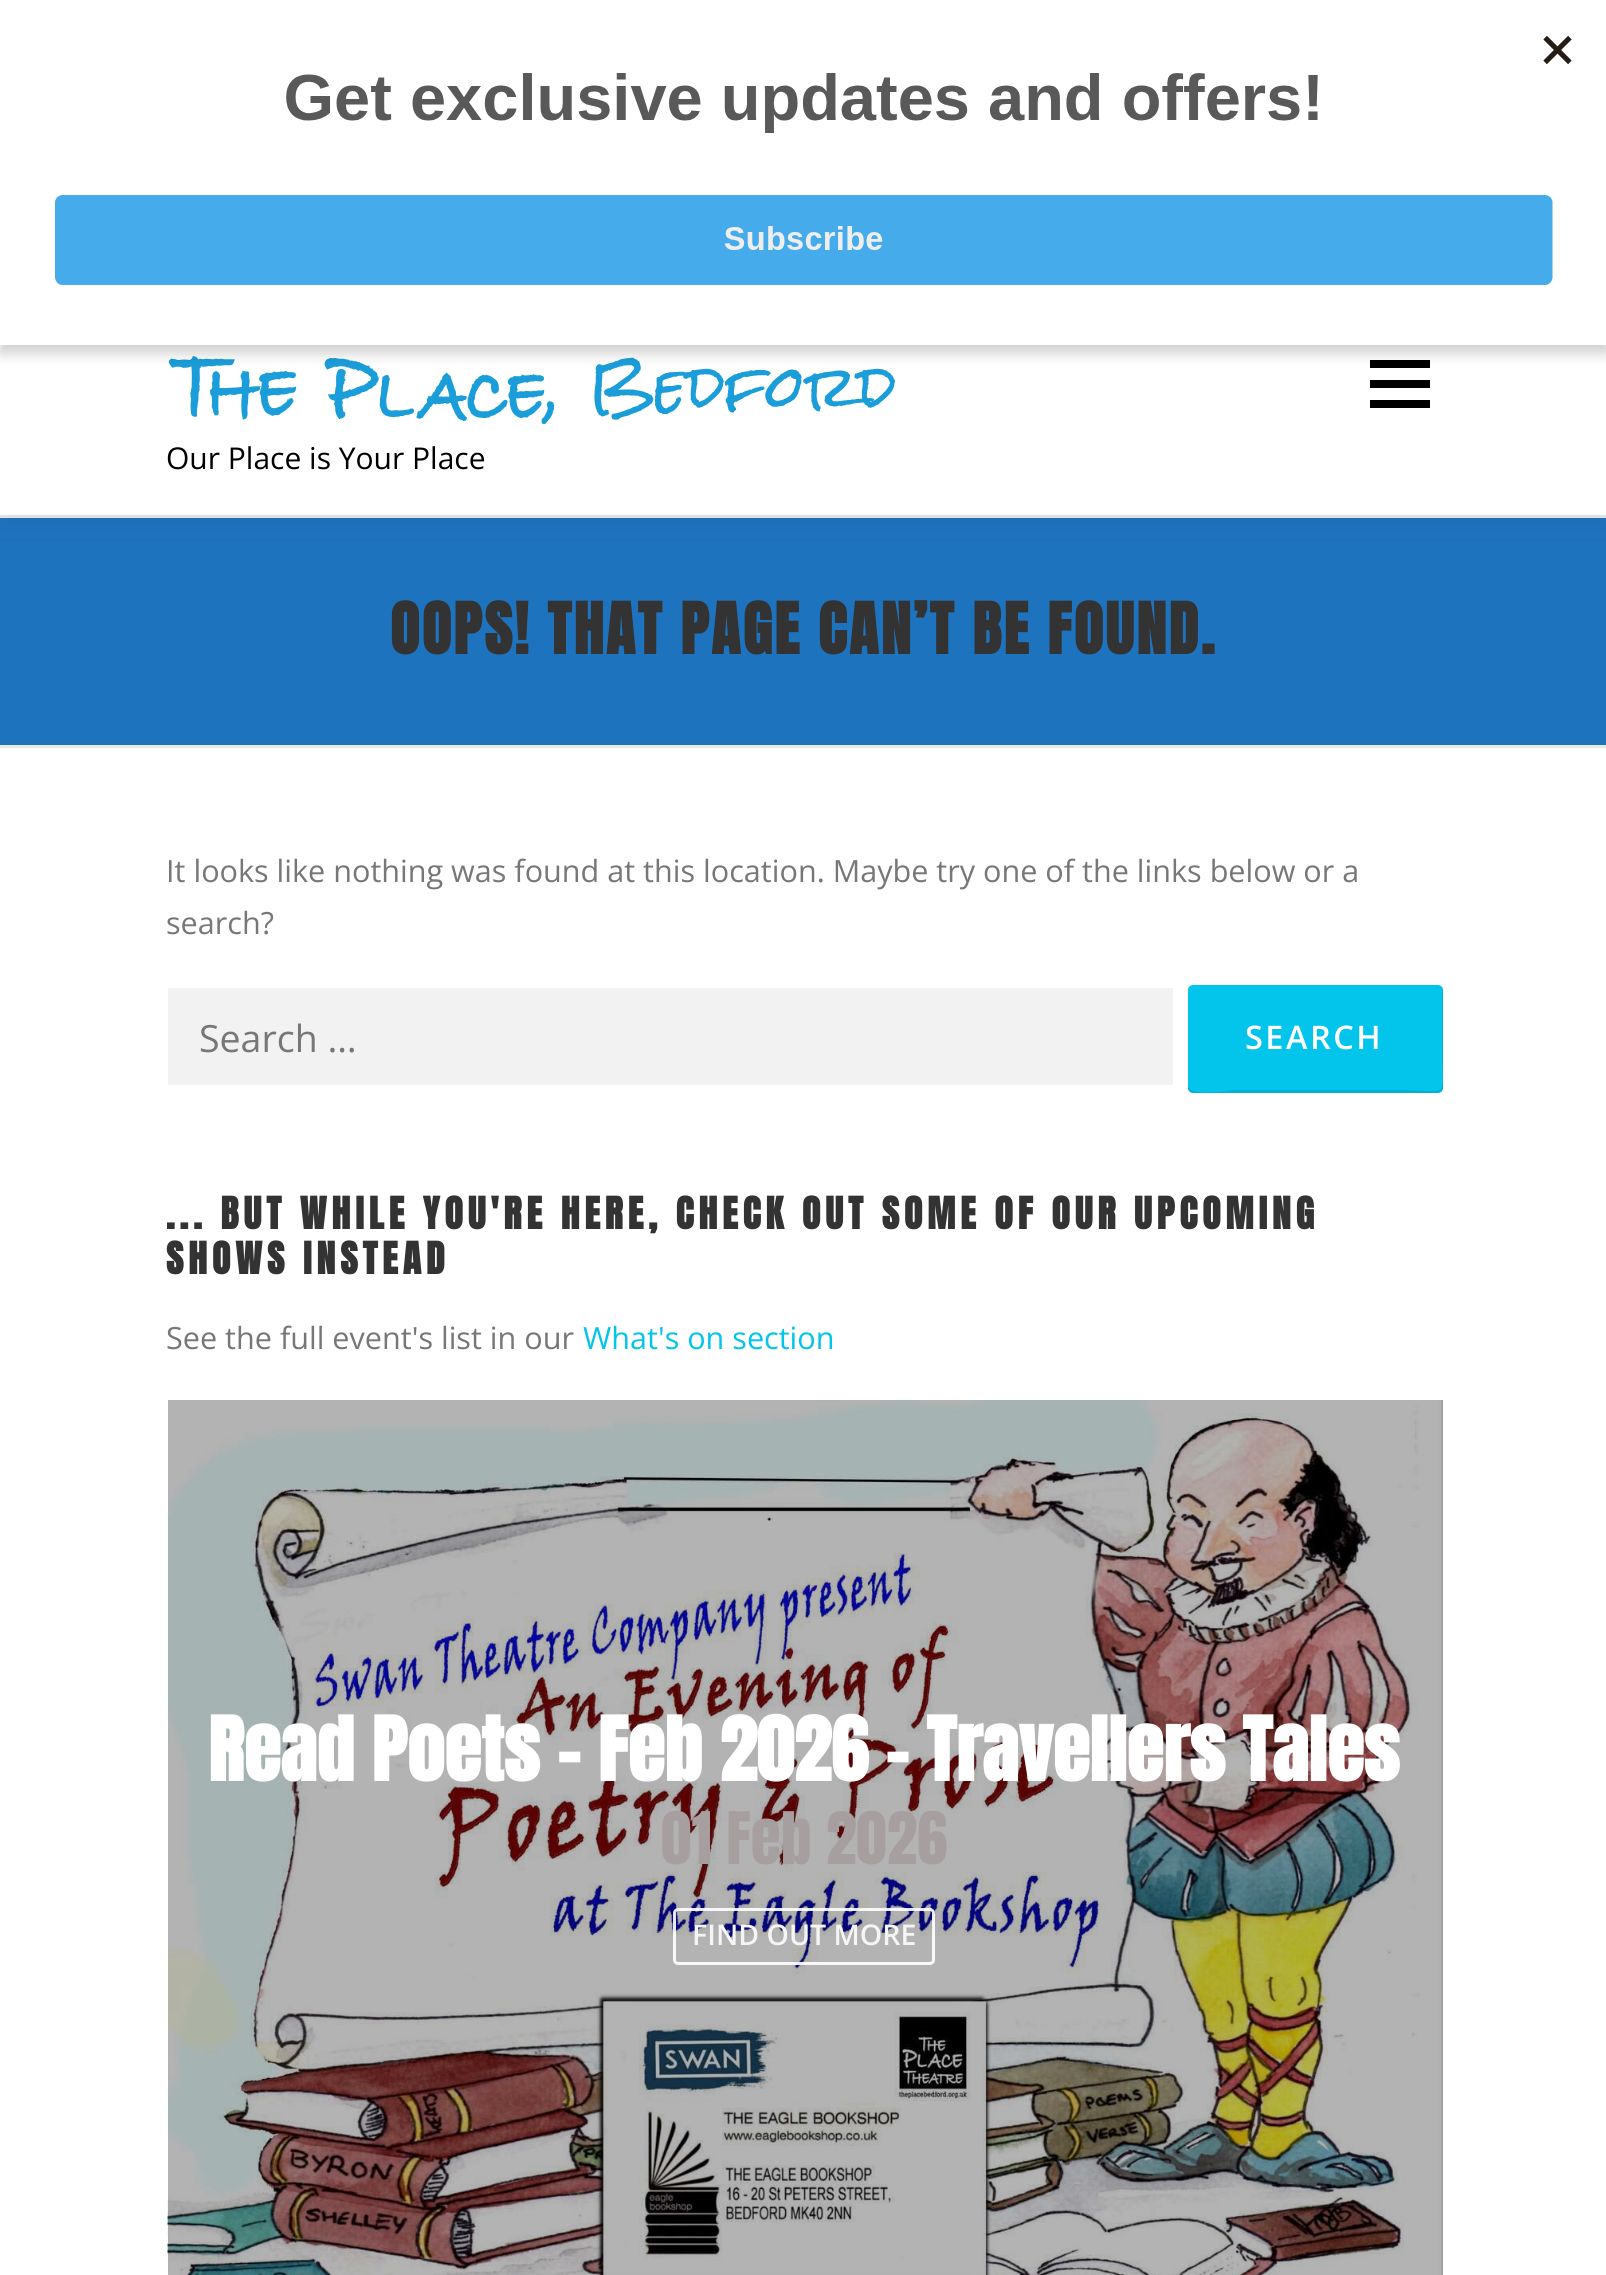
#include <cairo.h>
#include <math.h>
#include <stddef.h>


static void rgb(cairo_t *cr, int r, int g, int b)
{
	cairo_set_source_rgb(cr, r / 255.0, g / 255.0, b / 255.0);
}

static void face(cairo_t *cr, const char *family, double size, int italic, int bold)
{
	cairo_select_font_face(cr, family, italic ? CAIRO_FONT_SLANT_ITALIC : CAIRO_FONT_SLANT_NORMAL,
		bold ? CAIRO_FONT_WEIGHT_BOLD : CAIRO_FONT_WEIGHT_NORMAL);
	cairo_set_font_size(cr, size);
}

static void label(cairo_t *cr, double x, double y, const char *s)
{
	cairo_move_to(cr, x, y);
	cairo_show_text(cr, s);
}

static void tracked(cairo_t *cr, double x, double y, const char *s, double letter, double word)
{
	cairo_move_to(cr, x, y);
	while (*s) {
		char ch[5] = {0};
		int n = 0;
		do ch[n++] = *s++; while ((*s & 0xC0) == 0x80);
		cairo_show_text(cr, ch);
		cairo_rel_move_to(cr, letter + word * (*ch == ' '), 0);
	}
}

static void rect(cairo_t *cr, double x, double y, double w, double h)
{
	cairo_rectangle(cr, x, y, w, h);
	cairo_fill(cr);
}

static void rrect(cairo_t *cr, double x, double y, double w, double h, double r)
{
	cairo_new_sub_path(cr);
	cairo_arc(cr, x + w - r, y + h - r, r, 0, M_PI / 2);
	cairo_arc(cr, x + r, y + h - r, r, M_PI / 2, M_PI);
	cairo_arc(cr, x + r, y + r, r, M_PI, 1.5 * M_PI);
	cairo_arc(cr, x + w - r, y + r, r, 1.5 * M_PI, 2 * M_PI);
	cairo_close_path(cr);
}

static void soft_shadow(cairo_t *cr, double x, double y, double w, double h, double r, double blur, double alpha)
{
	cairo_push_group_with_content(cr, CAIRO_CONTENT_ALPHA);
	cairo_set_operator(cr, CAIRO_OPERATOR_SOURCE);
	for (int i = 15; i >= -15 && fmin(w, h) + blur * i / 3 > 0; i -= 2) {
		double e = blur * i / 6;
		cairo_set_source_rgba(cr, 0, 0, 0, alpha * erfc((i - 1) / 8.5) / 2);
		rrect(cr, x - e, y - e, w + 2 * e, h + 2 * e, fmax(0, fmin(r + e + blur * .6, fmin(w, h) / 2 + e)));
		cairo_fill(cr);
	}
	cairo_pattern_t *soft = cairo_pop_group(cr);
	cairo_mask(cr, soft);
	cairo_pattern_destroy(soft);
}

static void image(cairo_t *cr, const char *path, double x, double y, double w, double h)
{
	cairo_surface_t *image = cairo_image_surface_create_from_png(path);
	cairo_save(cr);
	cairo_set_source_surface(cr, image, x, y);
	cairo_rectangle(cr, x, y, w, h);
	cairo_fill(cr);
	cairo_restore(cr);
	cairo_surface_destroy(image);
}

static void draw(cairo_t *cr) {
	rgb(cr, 255, 255, 255);
	cairo_paint(cr);
	rgb(cr, 179, 179, 179);
	rect(cr, 1442, 1400, 1, 875);
	rgb(cr, 233, 233, 233);
	rect(cr, 0, 515, 1606, 3);
	rgb(cr, 30, 115, 190);
	rect(cr, 0, 518, 1606, 227);
	rgb(cr, 50, 50, 50);
	soft_shadow(cr, 0, 305, 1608, 223, 0, 12.5, 0.06);
	rgb(cr, 255, 255, 255);
	rect(cr, 0, 345, 1606, 170);
	rgb(cr, 0, 0, 0);
	rect(cr, 1370, 360, 60, 8);
	image(cr, "image1.png", 168, 356, 728, 68);
	rgb(cr, 0, 0, 0);
	soft_shadow(cr, 0, 8, 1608, 345, 0, 7.5, 0.2);
	rgb(cr, 255, 255, 255);
	rect(cr, 0, 0, 1606, 345);
	image(cr, "image0.png", 55, 35, 1517, 250);
	rgb(cr, 0, 0, 0);
	rect(cr, 1370, 380, 60, 8);
	rect(cr, 1370, 400, 60, 8);
	face(cr, "Open Sans", 30, 0, 0);
	label(cr, 166, 469, "Our Place is Your Place");
	rgb(cr, 233, 233, 233);
	rect(cr, 0, 745, 1606, 3);
	face(cr, "Anton", 60, 0, 1);
	rgb(cr, 51, 51, 51);
	tracked(cr, 390, 654, "OOPS! THAT PAGE CAN’T BE FOUND.", 2.5, 0);
	face(cr, "Open Sans", 30.6, 0, 0);
	rgb(cr, 119, 119, 119);
	label(cr, 166, 882, "It looks like nothing was found at this location. Maybe try one of the links below or a");
	label(cr, 166, 934, "search?");
	rgb(cr, 242, 242, 242);
	rect(cr, 168, 988, 1005, 97);
	face(cr, "Open Sans", 37.5, 0, 0);
	rgb(cr, 119, 119, 119);
	label(cr, 199, 1052, "Search …");
	rgb(cr, 3, 196, 235);
	rrect(cr, 1188, 985, 255, 108, 5);
	cairo_fill(cr);
	cairo_set_source_rgba(cr, 0, 0, 0, 0.1);
	cairo_new_path(cr);
	cairo_move_to(cr, 1188, 1085);
	cairo_line_to(cr, 1188, 1088);
	cairo_curve_to(cr, 1188, 1091, 1190, 1093, 1193, 1093);
	cairo_line_to(cr, 1438, 1093);
	cairo_curve_to(cr, 1441, 1093, 1443, 1091, 1443, 1088);
	cairo_line_to(cr, 1443, 990);
	cairo_curve_to(cr, 1443, 989, 1443, 988, 1442, 987);
	cairo_line_to(cr, 1442, 1053);
	cairo_curve_to(cr, 1442, 1101, 1451, 1090, 1397, 1090);
	cairo_line_to(cr, 1233, 1090);
	cairo_curve_to(cr, 1232, 1090, 1188, 1098, 1188, 1085);
	cairo_close_path(cr);
	cairo_fill(cr);
	face(cr, "Open Sans SemiBold", 32.5, 0, 0);
	rgb(cr, 255, 255, 255);
	tracked(cr, 1245, 1049, "SEARCH", 2.5, 0);
	face(cr, "Anton", 37.5, 0, 1);
	rgb(cr, 51, 51, 51);
	tracked(cr, 166, 1229, "... BUT WHILE YOU'RE HERE, CHECK OUT SOME OF OUR UPCOMING", 5, 0);
	tracked(cr, 166, 1274, "SHOWS INSTEAD", 5, 0);
	face(cr, "Open Sans", 30.6, 0, 0);
	rgb(cr, 119, 119, 119);
	label(cr, 166, 1349, "See the full event's list in our");
	rgb(cr, 3, 196, 235);
	label(cr, 583, 1349, "What's on section");
	image(cr, "image2.png", 167, 1400, 1276, 875);
	face(cr, "Anton", 75, 0, 1);
	rgb(cr, 255, 255, 255);
	label(cr, 208, 1781, "Read Poets – Feb 2026 – Travellers Tales");
	face(cr, "Anton", 61.5, 0, 0);
	rgb(cr, 167, 159, 159);
	label(cr, 661, 1864, "01 Feb 2026");
	rrect(cr, 674.5, 1909.5, 259, 54, 3.5);
	cairo_set_source_rgba(cr, 1, 1, 1, 0.9);
	cairo_set_line_width(cr, 3);
	cairo_stroke(cr);
	face(cr, "Open Sans SemiBold", 28.5, 0, 0);
	rgb(cr, 245, 245, 246);
	label(cr, 692, 1945, "FIND OUT MORE");
}

int main(void) {
	cairo_surface_t *surface = cairo_image_surface_create(CAIRO_FORMAT_RGB24, 1606, 2275);
	cairo_t *cr = cairo_create(surface);
	cairo_font_options_t *options = cairo_font_options_create();
	cairo_font_options_set_hint_metrics(options, CAIRO_HINT_METRICS_OFF);
	cairo_font_options_set_hint_style(options, CAIRO_HINT_STYLE_NONE);
	cairo_set_font_options(cr, options);
	cairo_set_miter_limit(cr, 4);
	draw(cr);
	cairo_surface_write_to_png(surface, "render.png");
	cairo_font_options_destroy(options);
	cairo_destroy(cr);
	cairo_surface_destroy(surface);
	return 0;
}
